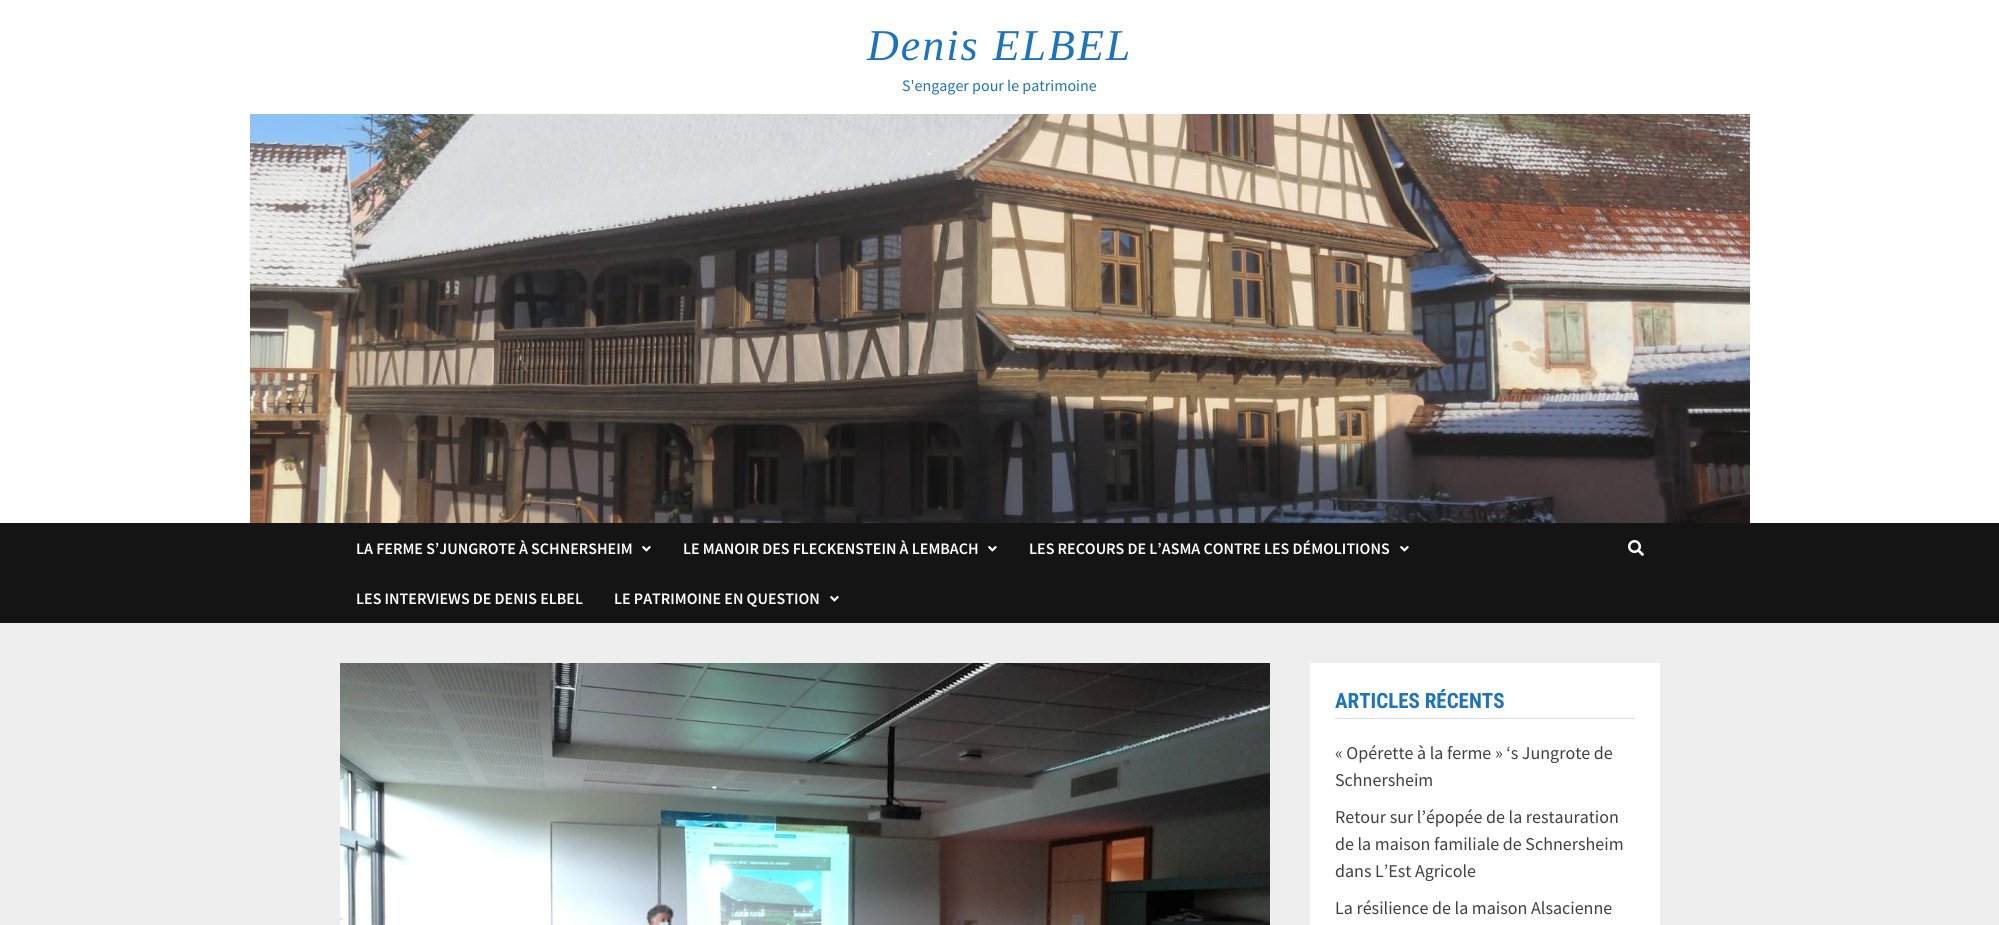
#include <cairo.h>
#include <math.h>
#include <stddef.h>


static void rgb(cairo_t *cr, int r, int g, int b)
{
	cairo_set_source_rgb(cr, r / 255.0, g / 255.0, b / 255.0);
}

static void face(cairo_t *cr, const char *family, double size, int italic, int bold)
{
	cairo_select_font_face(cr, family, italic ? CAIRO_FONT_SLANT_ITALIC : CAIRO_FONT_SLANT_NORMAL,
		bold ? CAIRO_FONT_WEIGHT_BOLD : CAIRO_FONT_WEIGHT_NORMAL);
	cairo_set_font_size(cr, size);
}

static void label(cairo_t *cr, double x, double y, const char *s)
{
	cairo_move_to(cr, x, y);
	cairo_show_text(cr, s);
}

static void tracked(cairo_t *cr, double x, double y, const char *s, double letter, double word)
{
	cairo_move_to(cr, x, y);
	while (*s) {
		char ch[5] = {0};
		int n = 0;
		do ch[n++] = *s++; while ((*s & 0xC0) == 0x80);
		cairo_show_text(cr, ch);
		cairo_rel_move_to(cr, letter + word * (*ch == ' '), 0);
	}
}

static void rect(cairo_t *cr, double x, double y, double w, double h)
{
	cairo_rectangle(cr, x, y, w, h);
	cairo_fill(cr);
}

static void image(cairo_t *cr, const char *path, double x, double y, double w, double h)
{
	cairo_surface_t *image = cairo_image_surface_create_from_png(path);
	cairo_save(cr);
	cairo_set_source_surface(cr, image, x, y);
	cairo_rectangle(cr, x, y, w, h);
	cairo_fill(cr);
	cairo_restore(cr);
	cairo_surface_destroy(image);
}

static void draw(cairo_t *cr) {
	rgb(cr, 238, 238, 238);
	cairo_paint(cr);
	rgb(cr, 255, 255, 255);
	rect(cr, 0, 0, 1999, 523);
	face(cr, "Liberation Serif", 44, 1, 0);
	rgb(cr, 30, 115, 190);
	tracked(cr, 867, 60, "Denis ELBEL", 2, 0);
	face(cr, "Source Sans Pro", 16, 0, 0);
	label(cr, 902, 91, "S'engager pour le patrimoine");
	image(cr, "image0.png", 250, 114, 1500, 409);
	rgb(cr, 20, 20, 20);
	rect(cr, 0, 523, 1999, 100);
	face(cr, "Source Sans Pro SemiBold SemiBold", 16, 0, 0);
	rgb(cr, 255, 255, 255);
	label(cr, 356, 554, "LA FERME S’JUNGROTE À SCHNERSHEIM");
	image(cr, "image1.png", 642, 546, 9, 6);
	label(cr, 683, 554, "LE MANOIR DES FLECKENSTEIN À LEMBACH");
	image(cr, "image1.png", 988, 546, 9, 6);
	label(cr, 1029, 554, "LES RECOURS DE L’ASMA CONTRE LES DÉMOLITIONS");
	image(cr, "image1.png", 1400, 546, 9, 6);
	label(cr, 356, 604, "LES INTERVIEWS DE DENIS ELBEL");
	label(cr, 614, 604, "LE PATRIMOINE EN QUESTION");
	image(cr, "image1.png", 830, 596, 9, 6);
	image(cr, "image2.png", 1628, 540, 16, 16);
	image(cr, "image3.png", 340, 663, 930, 262);
	rect(cr, 1310, 663, 350, 262);
	rgb(cr, 221, 221, 221);
	rect(cr, 1335, 718, 300, 1);
	face(cr, "Roboto Condensed", 21, 0, 1);
	rgb(cr, 30, 115, 190);
	label(cr, 1335, 708, "ARTICLES RÉCENTS");
	face(cr, "Source Sans Pro", 18, 0, 0);
	rgb(cr, 64, 64, 64);
	label(cr, 1335, 759, "« Opérette à la ferme » ‘s Jungrote de");
	label(cr, 1335, 786, "Schnersheim");
	label(cr, 1335, 823, "Retour sur l’épopée de la restauration");
	label(cr, 1335, 850, "de la maison familiale de Schnersheim");
	label(cr, 1335, 877, "dans L’Est Agricole");
	label(cr, 1335, 914, "La résilience de la maison Alsacienne");
}

int main(void) {
	cairo_surface_t *surface = cairo_image_surface_create(CAIRO_FORMAT_RGB24, 1999, 925);
	cairo_t *cr = cairo_create(surface);
	cairo_font_options_t *options = cairo_font_options_create();
	cairo_font_options_set_hint_metrics(options, CAIRO_HINT_METRICS_OFF);
	cairo_font_options_set_hint_style(options, CAIRO_HINT_STYLE_NONE);
	cairo_set_font_options(cr, options);
	cairo_set_miter_limit(cr, 4);
	draw(cr);
	cairo_surface_write_to_png(surface, "render.png");
	cairo_font_options_destroy(options);
	cairo_destroy(cr);
	cairo_surface_destroy(surface);
	return 0;
}
